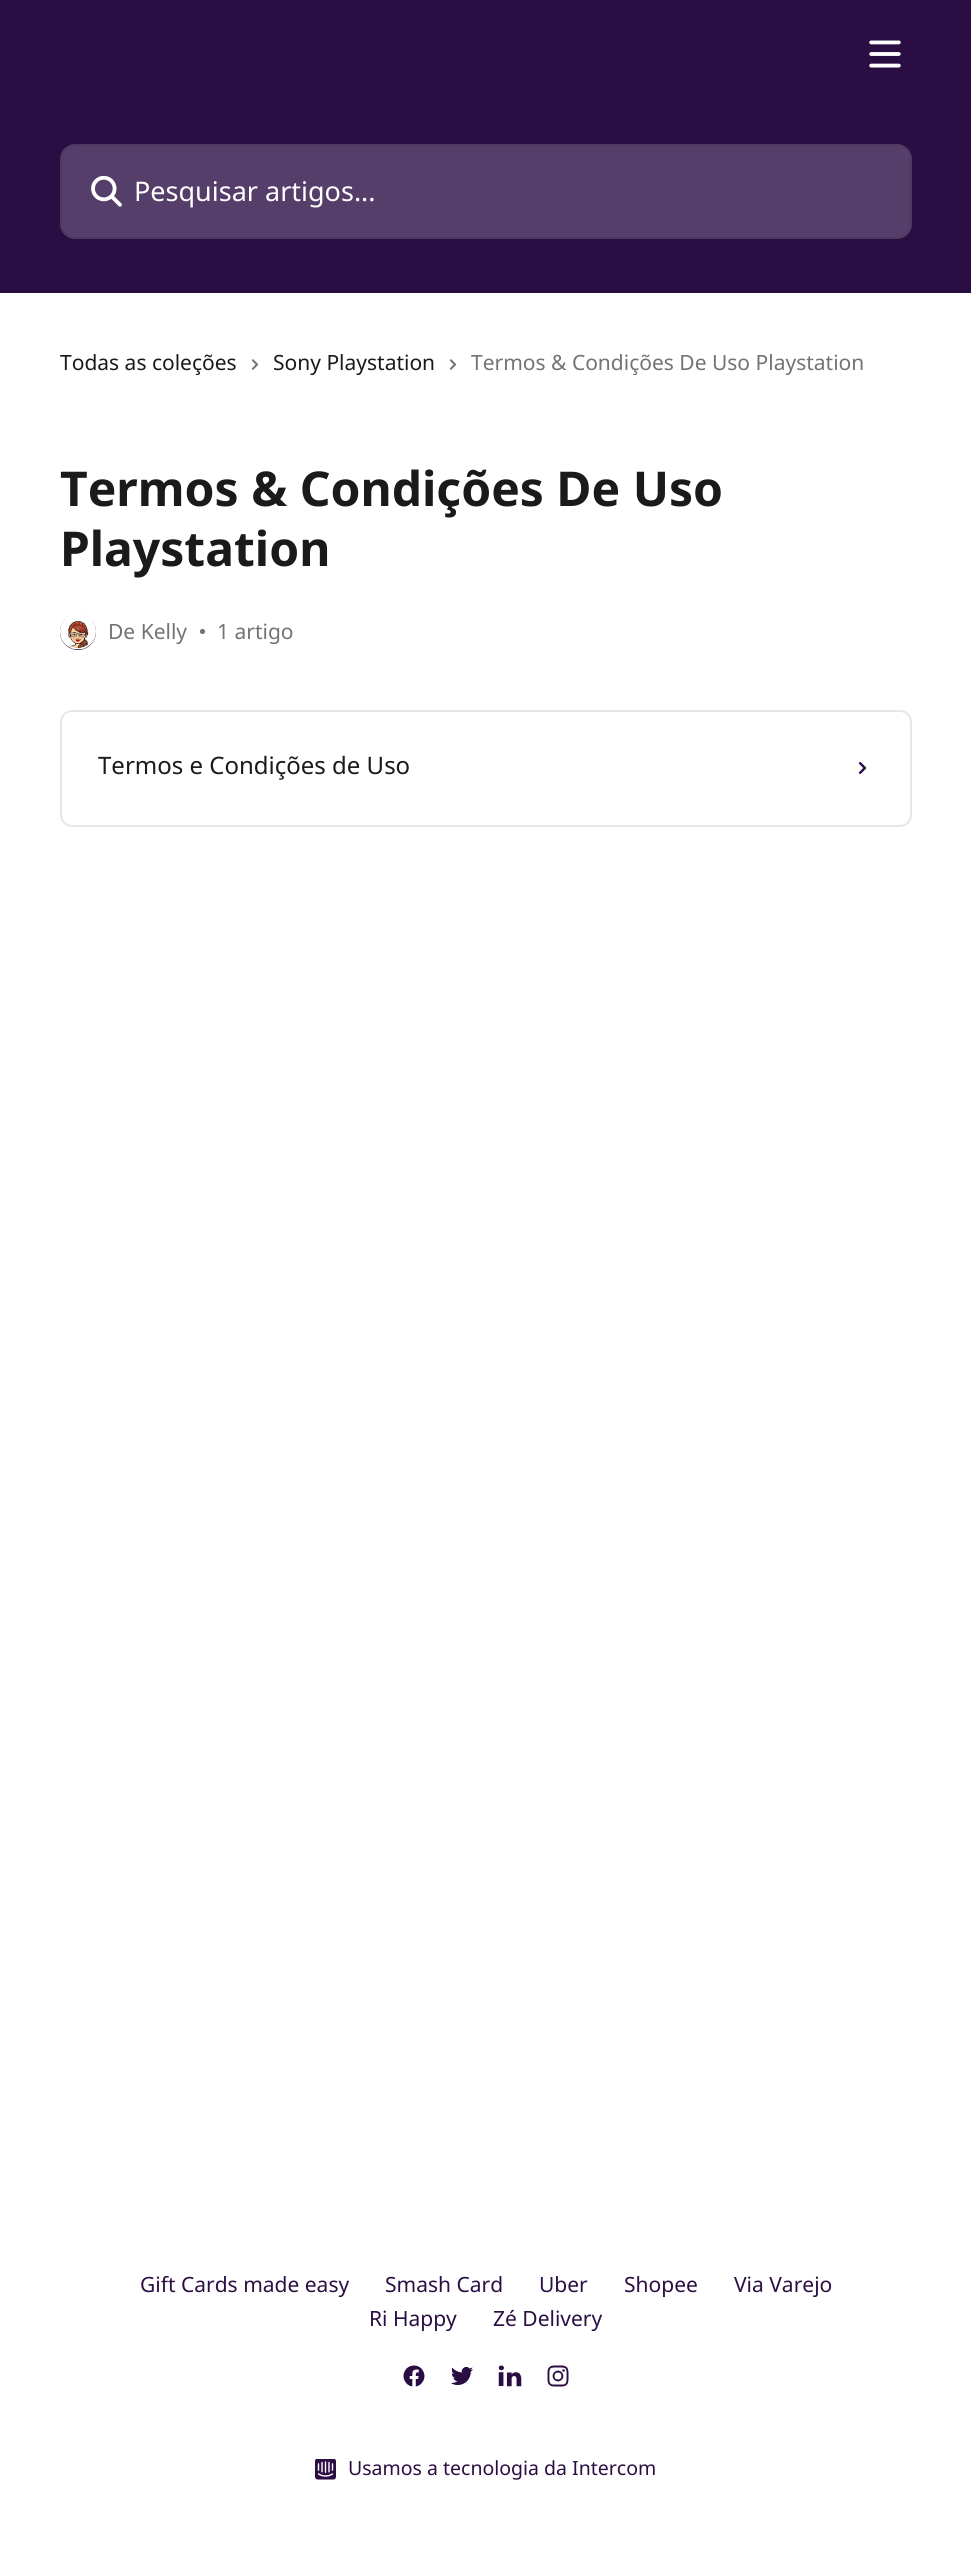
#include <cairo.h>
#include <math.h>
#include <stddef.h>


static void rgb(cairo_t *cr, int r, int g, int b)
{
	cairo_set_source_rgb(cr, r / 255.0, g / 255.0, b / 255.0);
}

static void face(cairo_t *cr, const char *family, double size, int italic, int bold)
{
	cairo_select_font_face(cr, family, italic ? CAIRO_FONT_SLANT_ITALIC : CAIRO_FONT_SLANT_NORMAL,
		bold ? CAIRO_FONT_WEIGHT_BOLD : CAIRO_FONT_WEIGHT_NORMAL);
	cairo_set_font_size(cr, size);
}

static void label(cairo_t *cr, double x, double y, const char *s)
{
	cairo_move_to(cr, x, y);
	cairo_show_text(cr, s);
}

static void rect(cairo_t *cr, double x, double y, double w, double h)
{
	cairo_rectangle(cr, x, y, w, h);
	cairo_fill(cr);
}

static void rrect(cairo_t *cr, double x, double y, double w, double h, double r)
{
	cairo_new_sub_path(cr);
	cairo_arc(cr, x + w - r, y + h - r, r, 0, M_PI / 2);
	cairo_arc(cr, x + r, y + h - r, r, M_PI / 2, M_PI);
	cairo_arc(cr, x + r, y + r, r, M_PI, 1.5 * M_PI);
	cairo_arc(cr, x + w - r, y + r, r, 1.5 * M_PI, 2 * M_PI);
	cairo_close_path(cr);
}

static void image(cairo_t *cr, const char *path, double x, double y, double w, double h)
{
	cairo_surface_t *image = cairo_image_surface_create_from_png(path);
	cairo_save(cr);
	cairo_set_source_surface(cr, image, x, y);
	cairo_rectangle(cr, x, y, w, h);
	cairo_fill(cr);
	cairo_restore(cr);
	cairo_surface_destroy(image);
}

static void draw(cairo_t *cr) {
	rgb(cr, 255, 255, 255);
	cairo_paint(cr);
	rgb(cr, 42, 14, 67);
	rect(cr, 0, 0, 971, 293);
	image(cr, "image0.png", 869, 40, 32, 28);
	rgb(cr, 85, 62, 105);
	rrect(cr, 60, 144, 852, 95, 15);
	cairo_fill(cr);
	rrect(cr, 61, 145, 850, 93, 14);
	cairo_set_source_rgba(cr, 0, 0, 0, 0.08);
	cairo_stroke(cr);
	image(cr, "image1.png", 91, 176, 31, 31);
	face(cr, "Noto Sans", 27, 0, 0);
	rgb(cr, 255, 255, 255);
	label(cr, 134, 201, "Pesquisar artigos...");
	face(cr, "Noto Sans", 21, 0, 0);
	rgb(cr, 26, 26, 26);
	label(cr, 60, 370, "Todas as coleções");
	image(cr, "image2.png", 251, 359, 8, 11);
	label(cr, 273, 370, "Sony Playstation");
	image(cr, "image2.png", 449, 359, 8, 11);
	rgb(cr, 115, 115, 115);
	label(cr, 471, 370, "Termos & Condições De Uso Playstation");
	face(cr, "Noto Sans", 48, 0, 1);
	rgb(cr, 26, 26, 26);
	label(cr, 60, 506, "Termos & Condições De Uso");
	label(cr, 60, 566, "Playstation");
	rgb(cr, 43, 14, 67);
	cairo_new_path(cr);
	cairo_arc(cr, 78, 632, 18, 0, 2 * M_PI);
	cairo_fill(cr);
	image(cr, "image3.png", 60, 614, 36, 36);
	face(cr, "Noto Sans", 21, 0, 0);
	rgb(cr, 115, 115, 115);
	label(cr, 108, 639, "De Kelly");
	image(cr, "image4.png", 200, 629, 6, 6);
	label(cr, 217, 639, "1 artigo");
	rrect(cr, 61, 711, 850, 115, 11);
	rgb(cr, 230, 230, 230);
	cairo_stroke(cr);
	face(cr, "Noto Sans", 24, 0, 0);
	rgb(cr, 26, 26, 26);
	label(cr, 98, 774, "Termos e Condições de Uso");
	image(cr, "image5.png", 858, 762, 9, 12);
	face(cr, "Noto Sans", 21, 0, 0);
	rgb(cr, 43, 14, 67);
	label(cr, 140, 2292, "Gift Cards made easy");
	label(cr, 385, 2292, "Smash Card");
	label(cr, 539, 2292, "Uber");
	label(cr, 624, 2292, "Shopee");
	label(cr, 734, 2292, "Via Varejo");
	label(cr, 369, 2326, "Ri Happy");
	label(cr, 493, 2326, "Zé Delivery");
	image(cr, "image6.png", 403, 2365, 22, 22);
	image(cr, "image7.png", 451, 2367, 22, 18);
	image(cr, "image8.png", 498, 2365, 24, 22);
	image(cr, "image9.png", 547, 2365, 22, 22);
	image(cr, "image10.png", 315, 2459, 21, 21);
	face(cr, "Noto Sans", 19.5, 0, 0);
	label(cr, 348, 2475, "Usamos a tecnologia da Intercom");
}

int main(void) {
	cairo_surface_t *surface = cairo_image_surface_create(CAIRO_FORMAT_RGB24, 971, 2556);
	cairo_t *cr = cairo_create(surface);
	cairo_font_options_t *options = cairo_font_options_create();
	cairo_font_options_set_hint_metrics(options, CAIRO_HINT_METRICS_OFF);
	cairo_font_options_set_hint_style(options, CAIRO_HINT_STYLE_NONE);
	cairo_set_font_options(cr, options);
	cairo_set_miter_limit(cr, 4);
	draw(cr);
	cairo_surface_write_to_png(surface, "render.png");
	cairo_font_options_destroy(options);
	cairo_destroy(cr);
	cairo_surface_destroy(surface);
	return 0;
}
